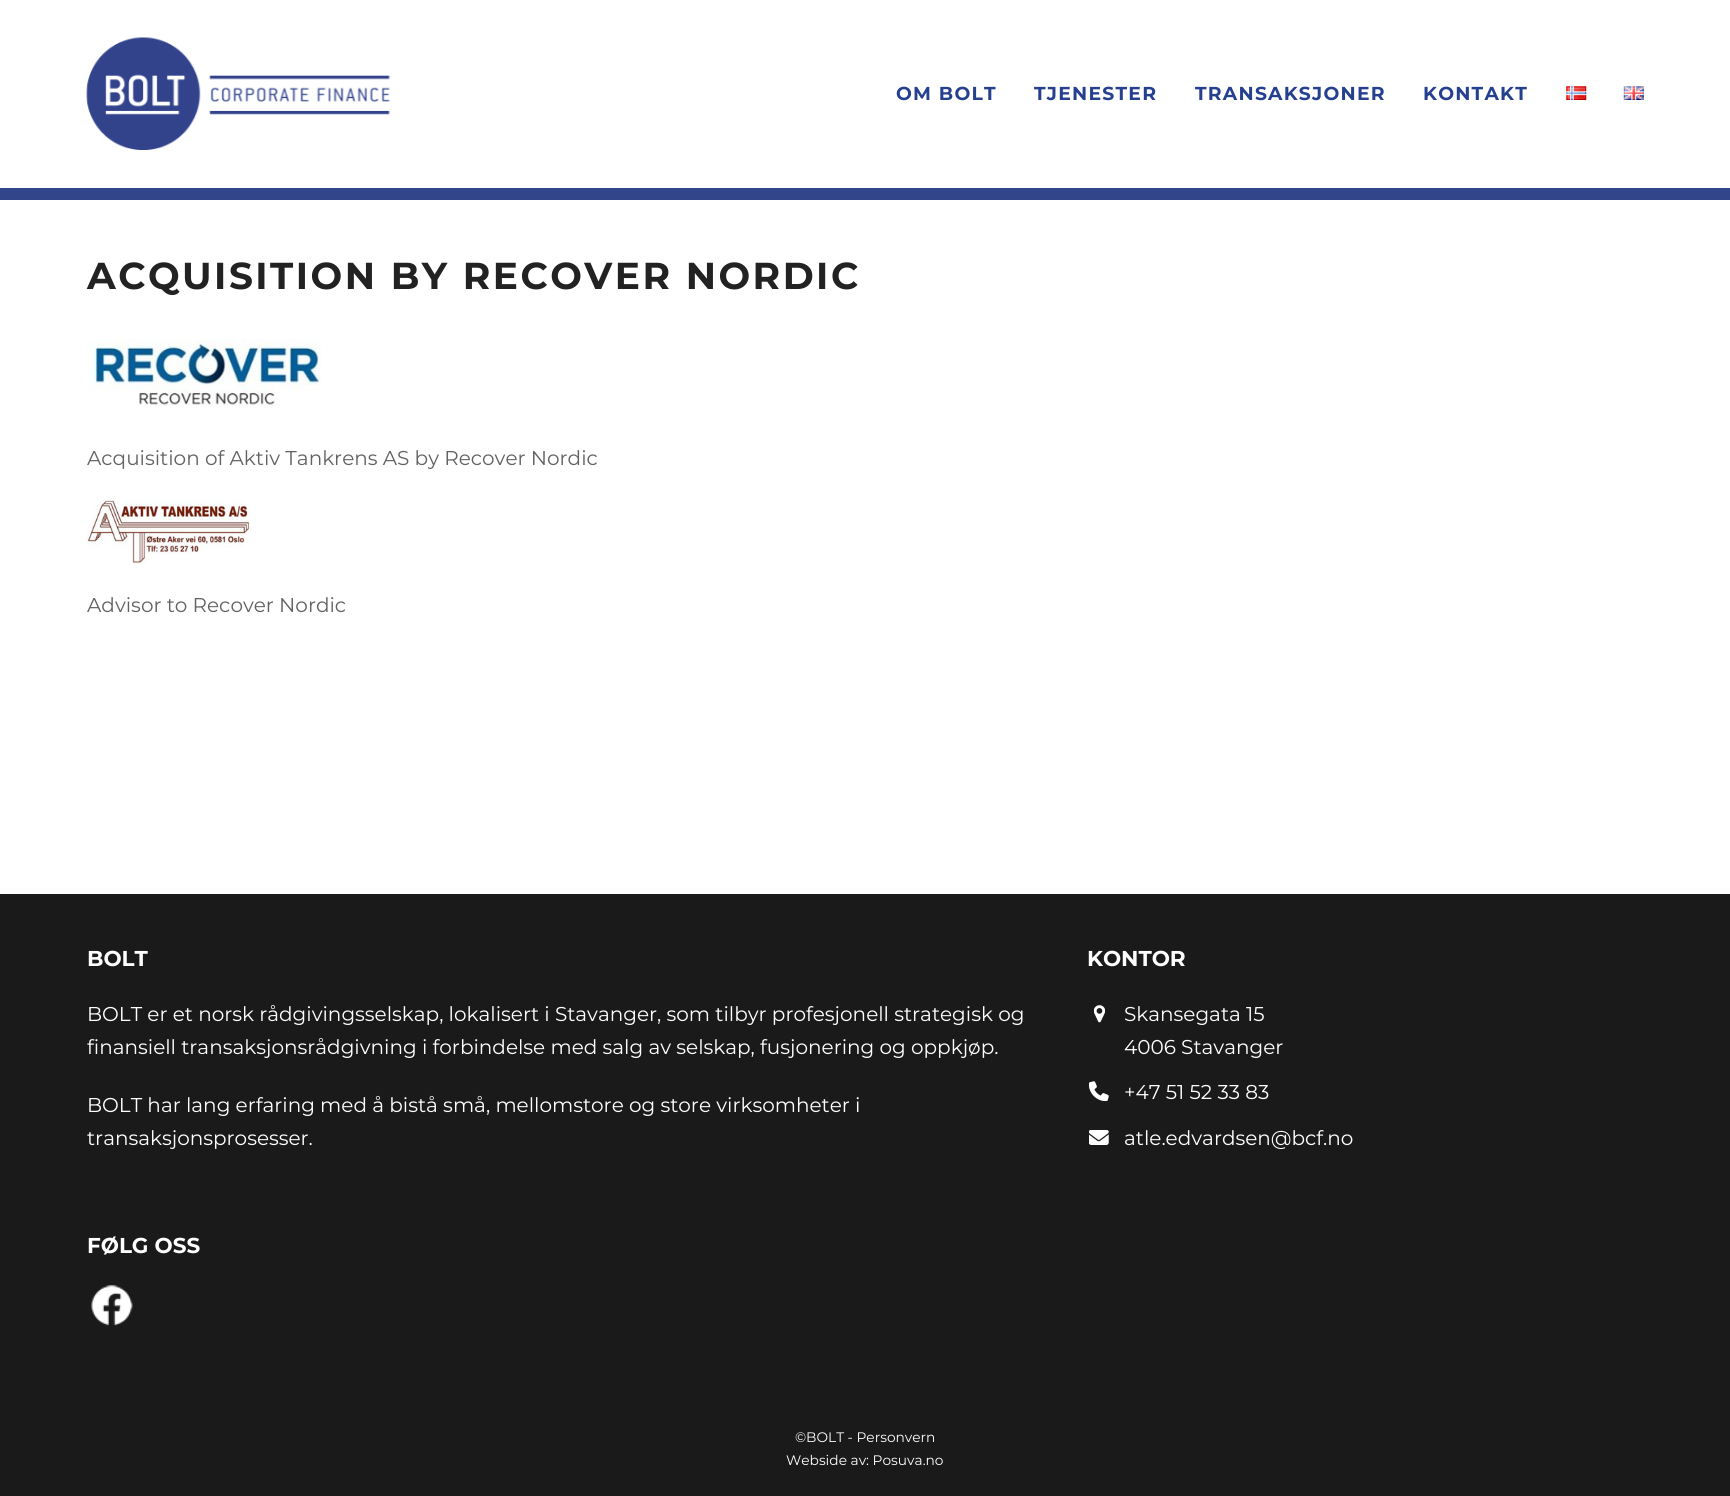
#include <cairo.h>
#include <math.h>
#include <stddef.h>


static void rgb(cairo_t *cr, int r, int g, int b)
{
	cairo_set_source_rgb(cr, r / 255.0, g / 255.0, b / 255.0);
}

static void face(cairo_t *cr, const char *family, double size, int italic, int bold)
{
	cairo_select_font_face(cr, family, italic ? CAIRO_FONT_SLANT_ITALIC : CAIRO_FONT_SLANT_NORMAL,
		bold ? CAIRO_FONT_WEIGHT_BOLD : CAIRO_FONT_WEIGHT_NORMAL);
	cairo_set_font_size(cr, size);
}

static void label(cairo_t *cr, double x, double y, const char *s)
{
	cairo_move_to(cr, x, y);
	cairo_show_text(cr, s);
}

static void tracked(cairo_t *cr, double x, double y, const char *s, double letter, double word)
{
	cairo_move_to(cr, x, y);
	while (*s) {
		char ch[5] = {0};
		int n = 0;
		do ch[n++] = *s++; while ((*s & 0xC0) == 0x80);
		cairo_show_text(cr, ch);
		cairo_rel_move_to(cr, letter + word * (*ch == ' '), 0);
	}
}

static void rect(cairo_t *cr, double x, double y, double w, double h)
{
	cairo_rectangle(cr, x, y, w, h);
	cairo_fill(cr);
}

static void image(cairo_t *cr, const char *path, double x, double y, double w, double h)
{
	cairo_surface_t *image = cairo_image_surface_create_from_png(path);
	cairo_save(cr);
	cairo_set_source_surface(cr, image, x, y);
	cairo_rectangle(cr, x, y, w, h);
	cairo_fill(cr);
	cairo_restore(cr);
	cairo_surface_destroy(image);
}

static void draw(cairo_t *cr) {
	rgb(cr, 255, 255, 255);
	cairo_paint(cr);
	rgb(cr, 51, 69, 138);
	rect(cr, 0, 188, 1730, 12);
	image(cr, "image0.png", 86, 37, 305, 113);
	face(cr, "Montserrat", 18.75, 0, 1);
	rgb(cr, 37, 64, 143);
	tracked(cr, 896, 100, "OM BOLT", 1.25, 0);
	tracked(cr, 1034, 100, "TJENESTER", 1.25, 0);
	tracked(cr, 1195, 100, "TRANSAKSJONER", 1.25, 0);
	tracked(cr, 1423, 100, "KONTAKT", 1.25, 0);
	image(cr, "image1.png", 1566, 86, 21, 14);
	image(cr, "image2.png", 1623, 86, 21, 14);
	face(cr, "Montserrat", 37.5, 0, 1);
	rgb(cr, 34, 34, 34);
	tracked(cr, 87, 289, "ACQUISITION BY RECOVER NORDIC", 2.5, 0);
	image(cr, "image3.png", 86, 339, 235, 67);
	face(cr, "Montserrat", 20, 0, 0);
	rgb(cr, 97, 97, 97);
	label(cr, 87, 465, "Acquisition of Aktiv Tankrens AS by Recover Nordic");
	image(cr, "image4.png", 86, 500, 165, 65);
	label(cr, 87, 612, "Advisor to Recover Nordic");
	rgb(cr, 26, 26, 26);
	rect(cr, 0, 894, 1730, 602);
	face(cr, "Montserrat", 21.5, 0, 1);
	rgb(cr, 255, 255, 255);
	label(cr, 87, 966, "BOLT");
	face(cr, "Montserrat", 20, 0, 0);
	label(cr, 87, 1021, "BOLT er et norsk rådgivingsselskap, lokalisert i Stavanger, som tilbyr profesjonell strategisk og");
	label(cr, 87, 1054, "finansiell transaksjonsrådgivning i forbindelse med salg av selskap, fusjonering og oppkjøp.");
	label(cr, 87, 1112, "BOLT har lang erfaring med å bistå små, mellomstore og store virksomheter i");
	label(cr, 87, 1145, "transaksjonsprosesser.");
	face(cr, "Montserrat", 21.5, 0, 1);
	label(cr, 1087, 966, "KONTOR");
	image(cr, "image5.png", 1094, 1005, 11, 18);
	face(cr, "Montserrat", 20, 0, 0);
	label(cr, 1124, 1021, "Skansegata 15");
	label(cr, 1124, 1054, "4006 Stavanger");
	image(cr, "image6.png", 1089, 1081, 20, 20);
	label(cr, 1124, 1099, "+47 51 52 33 83");
	image(cr, "image7.png", 1089, 1130, 20, 15);
	label(cr, 1124, 1145, "atle.edvardsen@bcf.no");
	face(cr, "Montserrat", 21.5, 0, 1);
	label(cr, 87, 1253, "FØLG OSS");
	image(cr, "image8.png", 91, 1285, 42, 41);
	face(cr, "Montserrat", 13.75, 0, 0);
	label(cr, 795, 1442, "©BOLT - Personvern");
	label(cr, 786, 1465, "Webside av: Posuva.no");
}

int main(void) {
	cairo_surface_t *surface = cairo_image_surface_create(CAIRO_FORMAT_RGB24, 1730, 1496);
	cairo_t *cr = cairo_create(surface);
	cairo_font_options_t *options = cairo_font_options_create();
	cairo_font_options_set_hint_metrics(options, CAIRO_HINT_METRICS_OFF);
	cairo_font_options_set_hint_style(options, CAIRO_HINT_STYLE_NONE);
	cairo_set_font_options(cr, options);
	cairo_set_miter_limit(cr, 4);
	draw(cr);
	cairo_surface_write_to_png(surface, "render.png");
	cairo_font_options_destroy(options);
	cairo_destroy(cr);
	cairo_surface_destroy(surface);
	return 0;
}
